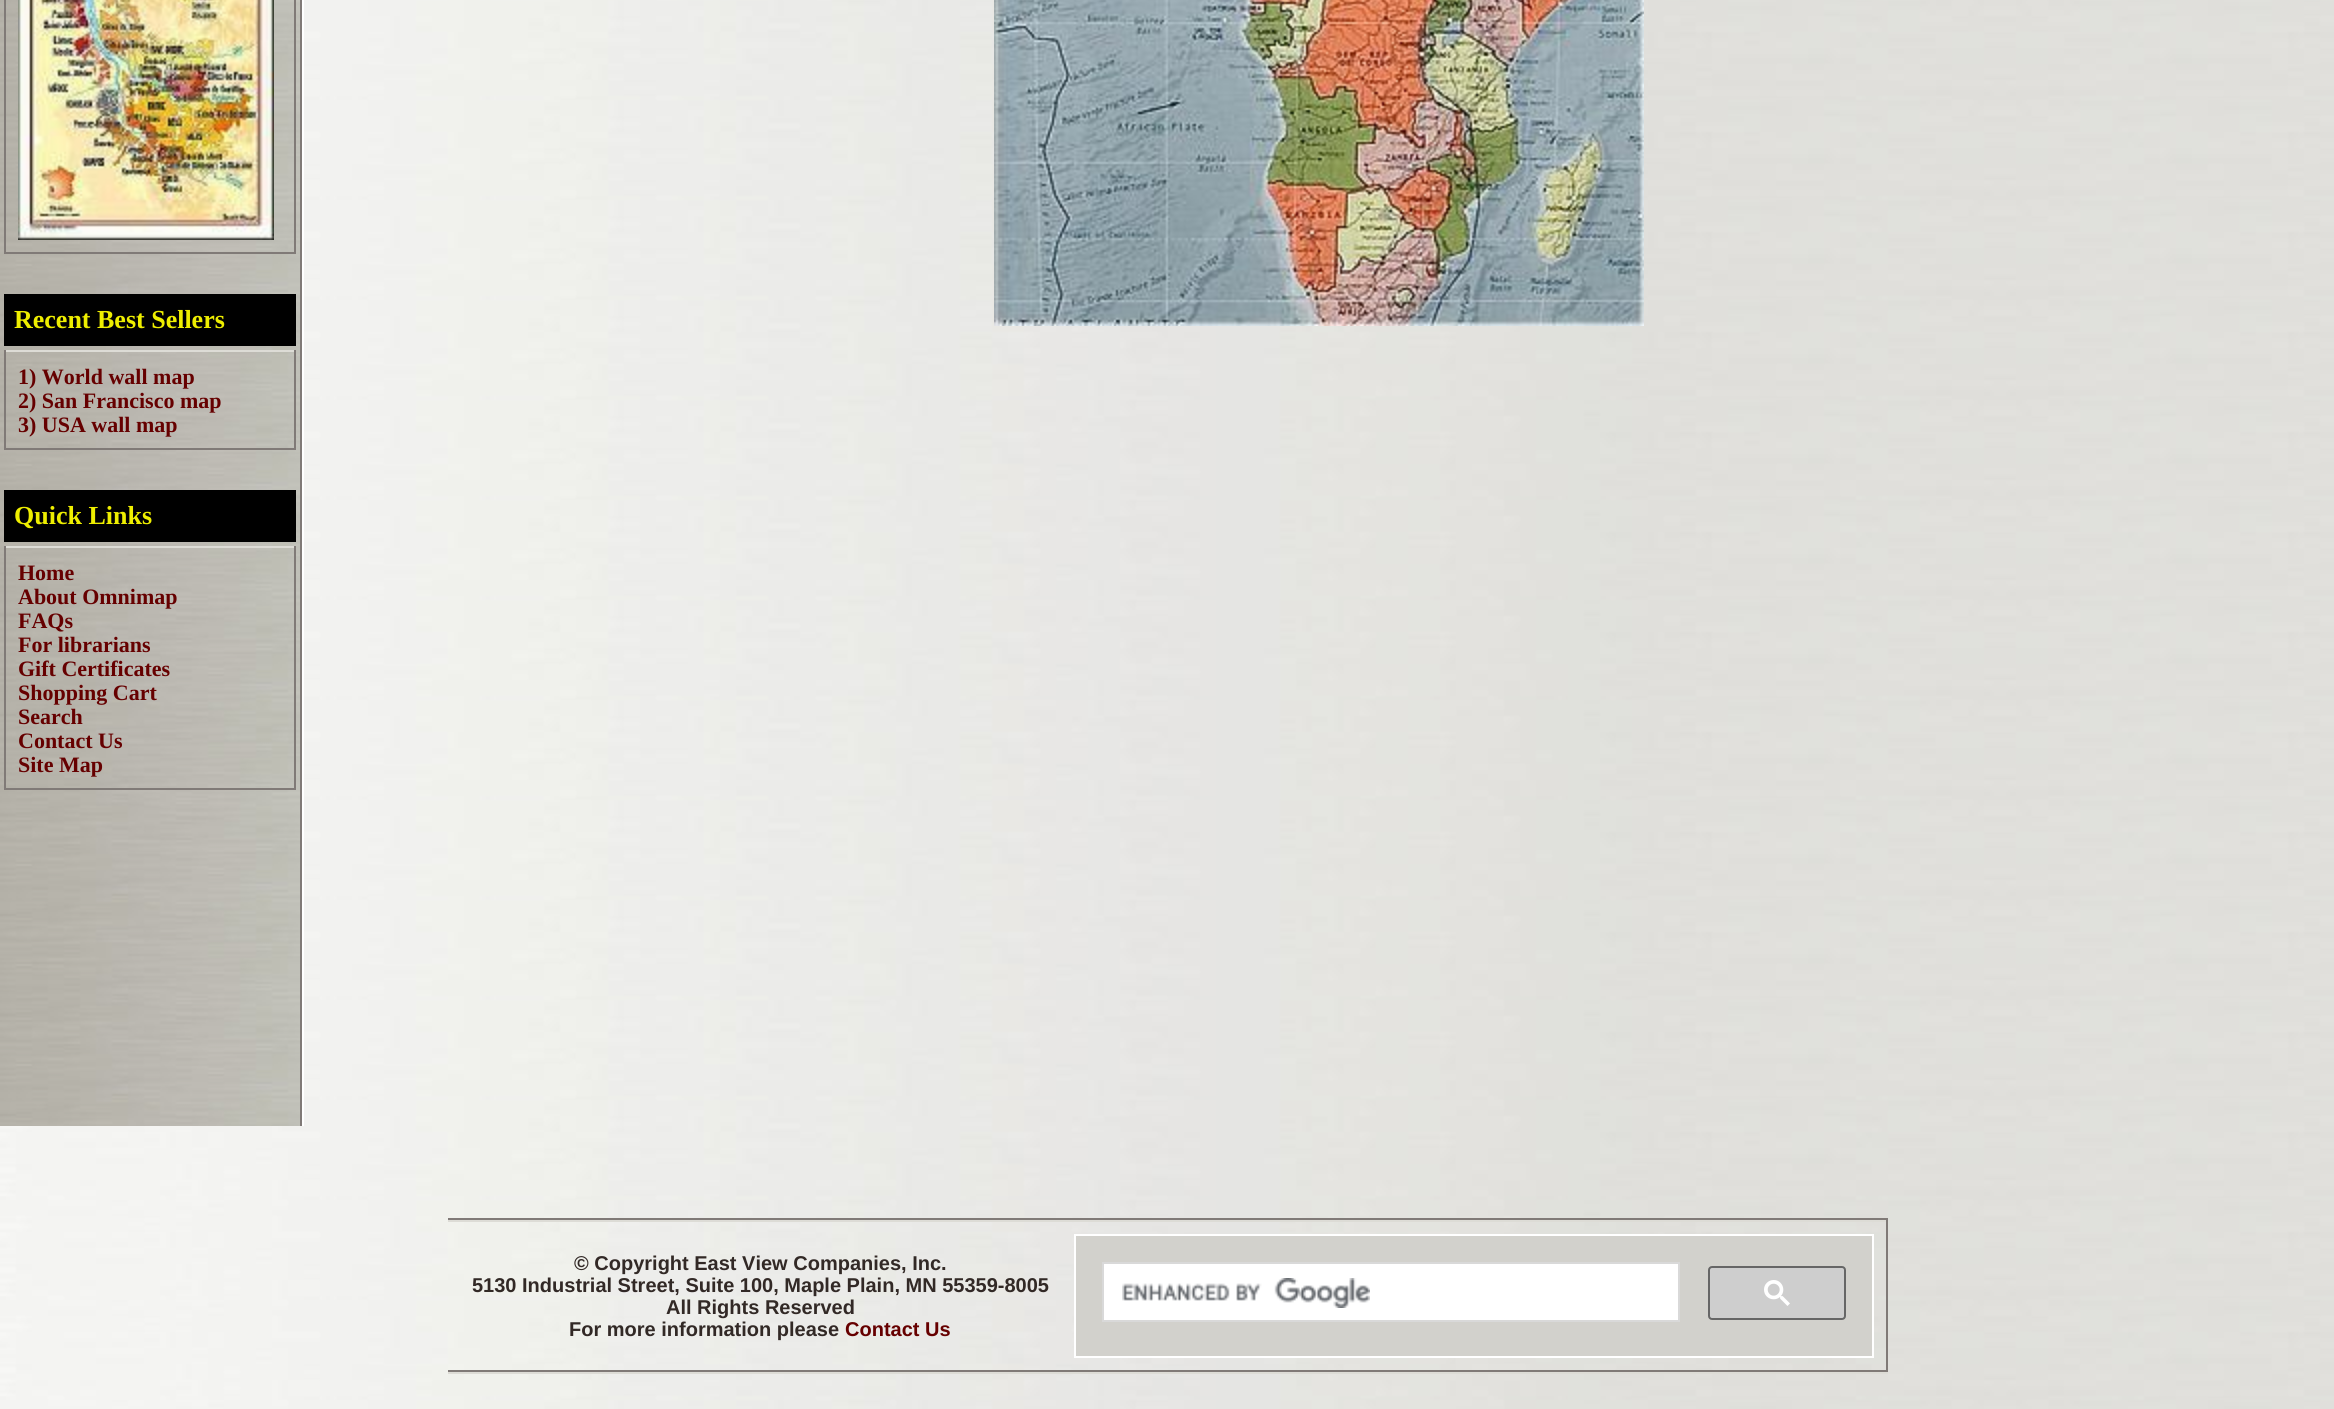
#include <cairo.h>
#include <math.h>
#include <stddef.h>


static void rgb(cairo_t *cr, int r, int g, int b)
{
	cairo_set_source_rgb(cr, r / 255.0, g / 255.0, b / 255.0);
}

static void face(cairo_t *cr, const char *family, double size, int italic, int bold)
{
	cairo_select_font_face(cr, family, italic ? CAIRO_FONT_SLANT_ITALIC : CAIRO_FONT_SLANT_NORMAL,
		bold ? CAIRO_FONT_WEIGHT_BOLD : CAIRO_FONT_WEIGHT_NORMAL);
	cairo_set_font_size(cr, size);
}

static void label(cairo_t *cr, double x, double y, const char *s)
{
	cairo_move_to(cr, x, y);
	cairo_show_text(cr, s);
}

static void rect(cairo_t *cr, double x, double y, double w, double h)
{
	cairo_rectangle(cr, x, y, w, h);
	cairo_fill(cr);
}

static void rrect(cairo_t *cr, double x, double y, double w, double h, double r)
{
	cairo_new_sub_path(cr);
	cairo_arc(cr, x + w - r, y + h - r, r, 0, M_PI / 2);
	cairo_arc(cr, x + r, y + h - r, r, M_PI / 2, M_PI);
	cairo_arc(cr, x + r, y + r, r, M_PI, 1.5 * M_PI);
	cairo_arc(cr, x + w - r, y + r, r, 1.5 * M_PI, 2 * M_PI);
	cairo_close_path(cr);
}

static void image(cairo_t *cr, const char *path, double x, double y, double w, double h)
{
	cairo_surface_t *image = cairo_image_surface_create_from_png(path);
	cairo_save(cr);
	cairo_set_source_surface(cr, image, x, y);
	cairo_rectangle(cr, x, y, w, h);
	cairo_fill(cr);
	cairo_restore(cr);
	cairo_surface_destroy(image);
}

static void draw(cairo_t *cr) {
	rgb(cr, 255, 255, 255);
	cairo_paint(cr);
	image(cr, "image0.png", 0, 0, 2334, 1409);
	image(cr, "image1.png", 0, 0, 300, 1126);
	rgb(cr, 128, 122, 119);
	rect(cr, 300, 0, 2, 1126);
	rect(cr, 294, 0, 2, 254);
	rect(cr, 4, 252, 292, 2);
	rect(cr, 4, 0, 2, 254);
	image(cr, "image2.png", 18, 0, 256, 240);
	rgb(cr, 0, 0, 0);
	rect(cr, 4, 294, 292, 52);
	face(cr, "Liberation Serif", 26, 0, 1);
	rgb(cr, 238, 238, 0);
	label(cr, 14, 328, "Recent Best Sellers");
	rgb(cr, 221, 220, 214);
	rect(cr, 4, 350, 292, 2);
	rgb(cr, 128, 122, 119);
	rect(cr, 294, 350, 2, 100);
	rect(cr, 4, 448, 292, 2);
	rect(cr, 4, 350, 2, 100);
	face(cr, "Liberation Serif", 22, 0, 1);
	rgb(cr, 102, 0, 0);
	label(cr, 18, 384, "1) World wall map");
	label(cr, 18, 408, "2) San Francisco map");
	label(cr, 18, 432, "3) USA wall map");
	rgb(cr, 0, 0, 0);
	rect(cr, 4, 490, 292, 52);
	face(cr, "Liberation Serif", 26, 0, 1);
	rgb(cr, 238, 238, 0);
	label(cr, 14, 524, "Quick Links");
	rgb(cr, 221, 220, 214);
	rect(cr, 4, 546, 292, 2);
	rgb(cr, 128, 122, 119);
	rect(cr, 294, 546, 2, 244);
	rect(cr, 4, 788, 292, 2);
	rect(cr, 4, 546, 2, 244);
	face(cr, "Liberation Serif", 22, 0, 1);
	rgb(cr, 102, 0, 0);
	label(cr, 18, 580, "Home");
	label(cr, 18, 604, "About Omnimap");
	label(cr, 18, 628, "FAQs");
	label(cr, 18, 652, "For librarians");
	label(cr, 18, 676, "Gift Certificates");
	label(cr, 18, 700, "Shopping Cart");
	label(cr, 18, 724, "Search");
	label(cr, 18, 748, "Contact Us");
	label(cr, 18, 772, "Site Map");
	rgb(cr, 255, 255, 255);
	rect(cr, 302, 0, 2, 1126);
	image(cr, "image3.png", 994, 0, 650, 326);
	rgb(cr, 128, 122, 119);
	rect(cr, 448, 1218, 1440, 2);
	rect(cr, 1886, 1218, 2, 156);
	rgb(cr, 221, 220, 214);
	rect(cr, 448, 1372, 1440, 2);
	rect(cr, 448, 1220, 1438, 2);
	rgb(cr, 128, 122, 119);
	rect(cr, 448, 1370, 1438, 2);
	face(cr, "Liberation Sans", 20, 0, 1);
	rgb(cr, 50, 41, 38);
	label(cr, 574, 1270, "© Copyright East View Companies, Inc.");
	label(cr, 472, 1292, "5130 Industrial Street, Suite 100, Maple Plain, MN 55359-8005");
	label(cr, 666, 1314, "All Rights Reserved");
	label(cr, 569, 1336, "For more information please");
	rgb(cr, 102, 0, 0);
	label(cr, 845, 1336, "Contact Us");
	rgb(cr, 210, 209, 204);
	cairo_rectangle(cr, 1075, 1235, 798, 122);
	cairo_fill_preserve(cr);
	rgb(cr, 255, 255, 255);
	cairo_stroke(cr);
	cairo_rectangle(cr, 1103, 1263, 576, 58);
	cairo_fill_preserve(cr);
	rgb(cr, 217, 217, 217);
	cairo_stroke(cr);
	image(cr, "image4.png", 1122, 1278, 248, 30);
	rgb(cr, 206, 206, 206);
	rrect(cr, 1709, 1267, 136, 52, 3);
	cairo_fill_preserve(cr);
	rgb(cr, 102, 102, 102);
	cairo_stroke(cr);
	image(cr, "image5.png", 1764, 1280, 26, 26);
}

int main(void) {
	cairo_surface_t *surface = cairo_image_surface_create(CAIRO_FORMAT_RGB24, 2334, 1409);
	cairo_t *cr = cairo_create(surface);
	cairo_font_options_t *options = cairo_font_options_create();
	cairo_font_options_set_hint_metrics(options, CAIRO_HINT_METRICS_OFF);
	cairo_font_options_set_hint_style(options, CAIRO_HINT_STYLE_NONE);
	cairo_set_font_options(cr, options);
	cairo_set_miter_limit(cr, 4);
	draw(cr);
	cairo_surface_write_to_png(surface, "render.png");
	cairo_font_options_destroy(options);
	cairo_destroy(cr);
	cairo_surface_destroy(surface);
	return 0;
}
